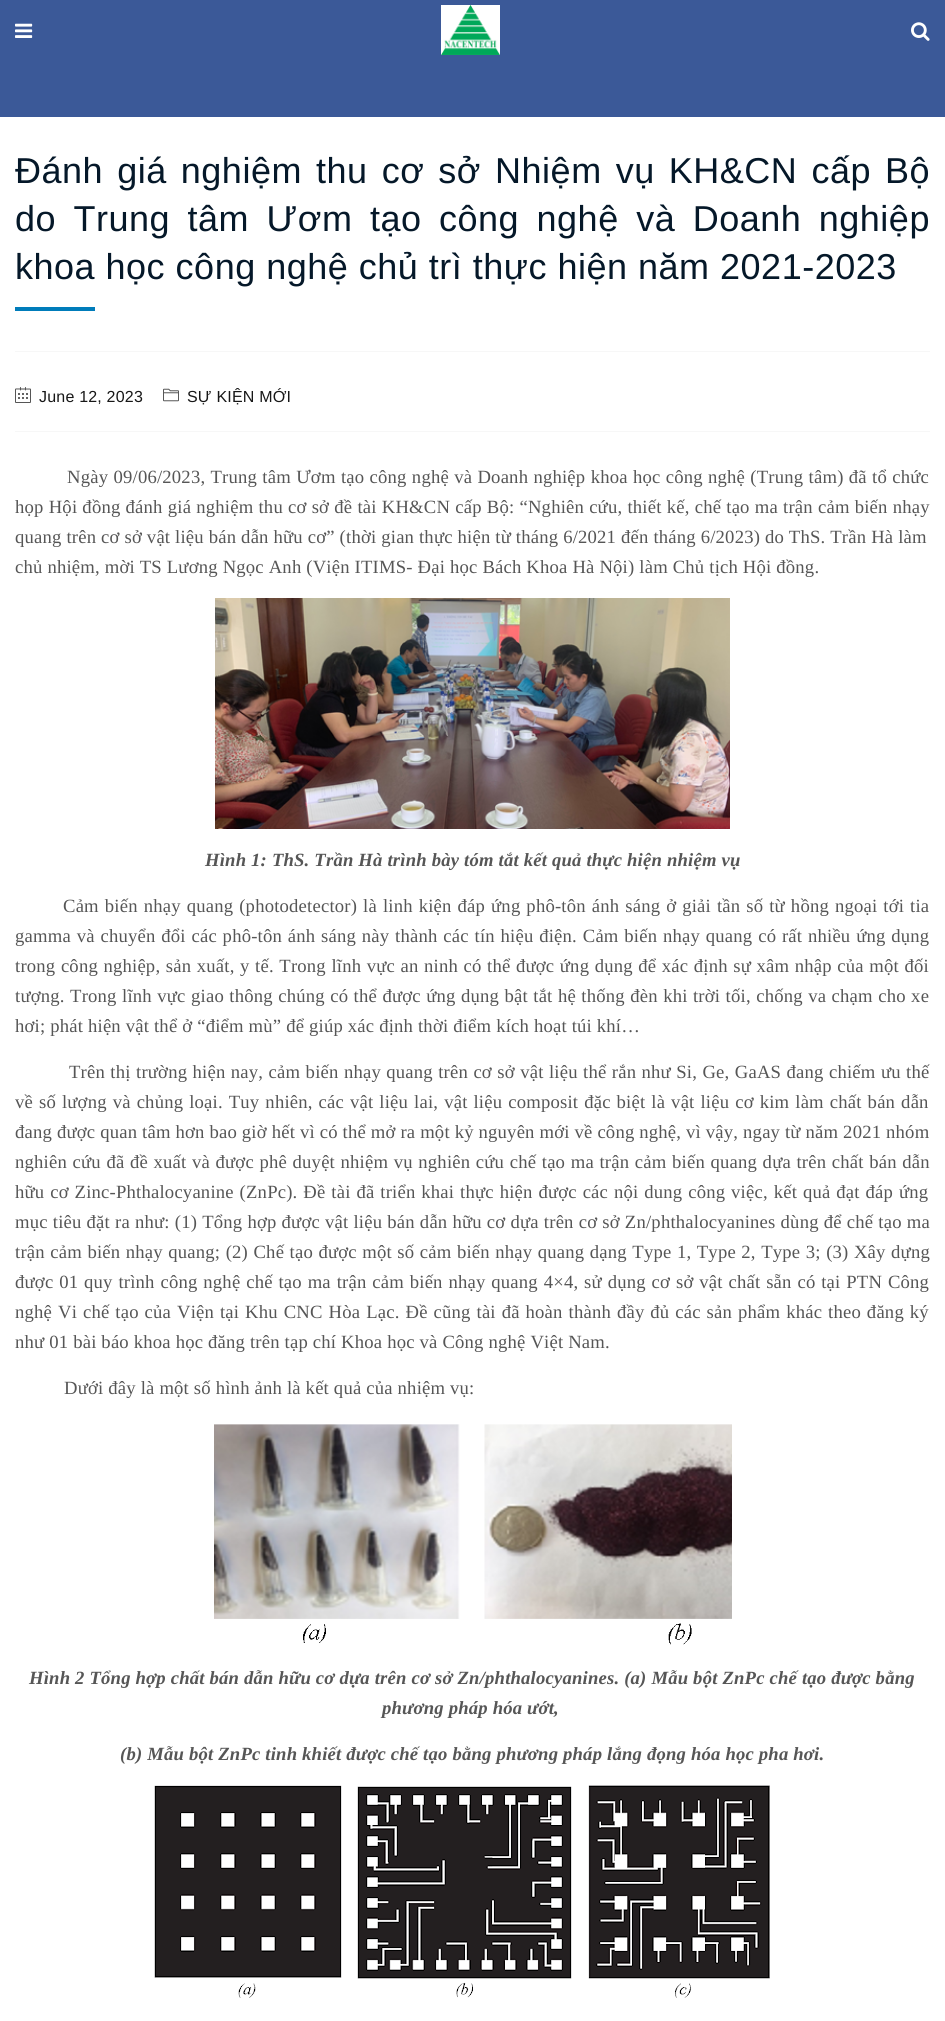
#include <cairo.h>
#include <math.h>
#include <stddef.h>


static void rgb(cairo_t *cr, int r, int g, int b)
{
	cairo_set_source_rgb(cr, r / 255.0, g / 255.0, b / 255.0);
}

static void face(cairo_t *cr, const char *family, double size, int italic, int bold)
{
	cairo_select_font_face(cr, family, italic ? CAIRO_FONT_SLANT_ITALIC : CAIRO_FONT_SLANT_NORMAL,
		bold ? CAIRO_FONT_WEIGHT_BOLD : CAIRO_FONT_WEIGHT_NORMAL);
	cairo_set_font_size(cr, size);
}

static void tracked(cairo_t *cr, double x, double y, const char *s, double letter, double word)
{
	cairo_move_to(cr, x, y);
	while (*s) {
		char ch[5] = {0};
		int n = 0;
		do ch[n++] = *s++; while ((*s & 0xC0) == 0x80);
		cairo_show_text(cr, ch);
		cairo_rel_move_to(cr, letter + word * (*ch == ' '), 0);
	}
}

static void rect(cairo_t *cr, double x, double y, double w, double h)
{
	cairo_rectangle(cr, x, y, w, h);
	cairo_fill(cr);
}

static void image(cairo_t *cr, const char *path, double x, double y, double w, double h)
{
	cairo_surface_t *image = cairo_image_surface_create_from_png(path);
	cairo_save(cr);
	cairo_set_source_surface(cr, image, x, y);
	cairo_rectangle(cr, x, y, w, h);
	cairo_fill(cr);
	cairo_restore(cr);
	cairo_surface_destroy(image);
}

static void draw(cairo_t *cr) {
	rgb(cr, 255, 255, 255);
	cairo_paint(cr);
	rgb(cr, 59, 89, 152);
	rect(cr, 0, 0, 945, 117);
	image(cr, "image0.png", 15, 23, 18, 15);
	image(cr, "image1.png", 441, 5, 59, 50);
	image(cr, "image2.png", 911, 22, 19, 19);
	rgb(cr, 247, 247, 247);
	rect(cr, 15, 351, 915, 1);
	face(cr, "Liberation Sans", 36, 0, 0);
	rgb(cr, 5, 24, 41);
	tracked(cr, 15, 183, "Đánh giá nghiệm thu cơ sở Nhiệm vụ KH&CN cấp Bộ", 0.5, 3.6);
	tracked(cr, 15, 231, "do Trung tâm Ươm tạo công nghệ và Doanh nghiệp", 0.5, 7);
	tracked(cr, 15, 279, "khoa học công nghệ chủ trì thực hiện năm 2021-2023", 0.5, 0);
	rgb(cr, 0, 124, 186);
	rect(cr, 15, 307, 80, 4);
	rgb(cr, 247, 247, 247);
	rect(cr, 15, 431, 915, 1);
	image(cr, "image3.png", 15, 387, 16, 16);
	face(cr, "Liberation Sans", 16, 0, 0);
	rgb(cr, 23, 23, 23);
	tracked(cr, 39, 402, "June 12, 2023", 0.2, 0);
	image(cr, "image4.png", 163, 388, 16, 14);
	tracked(cr, 187, 402, "SỰ KIỆN MỚI", 0.2, 0);
	face(cr, "Liberation Serif", 18.65, 0, 0);
	rgb(cr, 86, 86, 86);
	tracked(cr, 67, 483, "Ngày 09/06/2023, Trung tâm Ươm tạo công nghệ và Doanh nghiệp khoa học công nghệ (Trung tâm) đã tổ chức", 0.2, 0.4);
	tracked(cr, 15, 513, "họp Hội đồng đánh giá nghiệm thu cơ sở đề tài KH&CN cấp Bộ: “Nghiên cứu, thiết kế, chế tạo ma trận cảm biến nhạy", 0.2, 0.25);
	tracked(cr, 15, 543, "quang trên cơ sở vật liệu bán dẫn hữu cơ” (thời gian thực hiện từ tháng 6/2021 đến tháng 6/2023) do ThS. Trần Hà làm", 0.2, 0);
	tracked(cr, 15, 573, "chủ nhiệm, mời TS Lương Ngọc Anh (Viện ITIMS- Đại học Bách Khoa Hà Nội) làm Chủ tịch Hội đồng.", 0.2, 0);
	image(cr, "image5.png", 215, 598, 515, 231);
	face(cr, "Liberation Serif", 18.65, 1, 1);
	tracked(cr, 205, 866, "Hình 1: ThS. Trần Hà trình bày tóm tắt kết quả thực hiện nhiệm vụ", 0.2, 0);
	face(cr, "Liberation Serif", 18.65, 0, 0);
	tracked(cr, 63, 912, "Cảm biến nhạy quang (photodetector) là linh kiện đáp ứng phô-tôn ánh sáng ở giải tần số từ hồng ngoại tới tia", 0.2, 1.1);
	tracked(cr, 15, 942, "gamma và chuyển đổi các phô-tôn ánh sáng này thành các tín hiệu điện. Cảm biến nhạy quang có rất nhiều ứng dụng", 0.2, 0.9);
	tracked(cr, 15, 972, "trong công nghiệp, sản xuất, y tế. Trong lĩnh vực an ninh có thể được ứng dụng để xác định sự xâm nhập của một đối", 0.2, 0.65);
	tracked(cr, 15, 1002, "tượng. Trong lĩnh vực giao thông chúng có thể được ứng dụng bật tắt hệ thống đèn khi trời tối, chống va chạm cho xe", 0.2, 0.55);
	tracked(cr, 15, 1032, "hơi; phát hiện vật thể ở “điểm mù” để giúp xác định thời điểm kích hoạt túi khí…", 0.2, 0);
	tracked(cr, 69, 1078, "Trên thị trường hiện nay, cảm biến nhạy quang trên cơ sở vật liệu thể rắn như Si, Ge, GaAS đang chiếm ưu thế", 0.2, 0.5);
	tracked(cr, 15, 1108, "về số lượng và chủng loại. Tuy nhiên, các vật liệu lai, vật liệu composit đặc biệt là vật liệu cơ kim làm chất bán dẫn", 0.2, 1.1);
	tracked(cr, 15, 1138, "đang được quan tâm hơn bao giờ hết vì có thể mở ra một kỷ nguyên mới về công nghệ, vì vậy, ngay từ năm 2021 nhóm", 0.2, 0);
	tracked(cr, 15, 1168, "nghiên cứu đã đề xuất và được phê duyệt nhiệm vụ nghiên cứu chế tạo ma trận cảm biến quang dựa trên chất bán dẫn", 0.2, 0.7);
	tracked(cr, 15, 1198, "hữu cơ Zinc-Phthalocyanine (ZnPc). Đề tài đã triển khai thực hiện được các nội dung công việc, kết quả đạt đáp ứng", 0.2, 1);
	tracked(cr, 15, 1228, "mục tiêu đặt ra như: (1) Tổng hợp được vật liệu bán dẫn hữu cơ dựa trên cơ sở Zn/phthalocyanines dùng để chế tạo ma", 0.2, 0.2);
	tracked(cr, 15, 1258, "trận cảm biến nhạy quang; (2) Chế tạo được một số cảm biến nhạy quang dạng Type 1, Type 2, Type 3; (3) Xây dựng", 0.2, 0.6);
	tracked(cr, 15, 1288, "được 01 quy trình công nghệ chế tạo ma trận cảm biến nhạy quang 4×4, sử dụng cơ sở vật chất sẵn có tại PTN Công", 0.2, 0.95);
	tracked(cr, 15, 1318, "nghệ Vi chế tạo của Viện tại Khu CNC Hòa Lạc. Đề cũng tài đã hoàn thành đầy đủ các sản phẩm khác theo đăng ký", 0.2, 1.05);
	tracked(cr, 15, 1348, "như 01 bài báo khoa học đăng trên tạp chí Khoa học và Công nghệ Việt Nam.", 0.2, 0);
	tracked(cr, 64, 1394, "Dưới đây là một số hình ảnh là kết quả của nhiệm vụ:", 0.2, 0);
	image(cr, "image6.png", 214, 1424, 518, 221);
	face(cr, "Liberation Serif", 18.65, 1, 1);
	tracked(cr, 29, 1684, "Hình 2 Tổng hợp chất bán dẫn hữu cơ dựa trên cơ sở Zn/phthalocyanines. (a) Mẫu bột ZnPc chế tạo được bằng", 0.2, 0);
	tracked(cr, 382, 1714, "phương pháp hóa ướt,", 0.2, 0);
	tracked(cr, 120, 1760, "(b) Mẫu bột ZnPc tinh khiết được chế tạo bằng phương pháp lắng đọng hóa học pha hơi.", 0.2, 0);
	image(cr, "image7.png", 154, 1785, 616, 213);
}

int main(void) {
	cairo_surface_t *surface = cairo_image_surface_create(CAIRO_FORMAT_RGB24, 945, 2021);
	cairo_t *cr = cairo_create(surface);
	cairo_font_options_t *options = cairo_font_options_create();
	cairo_font_options_set_hint_metrics(options, CAIRO_HINT_METRICS_OFF);
	cairo_font_options_set_hint_style(options, CAIRO_HINT_STYLE_NONE);
	cairo_set_font_options(cr, options);
	cairo_set_miter_limit(cr, 4);
	draw(cr);
	cairo_surface_write_to_png(surface, "render.png");
	cairo_font_options_destroy(options);
	cairo_destroy(cr);
	cairo_surface_destroy(surface);
	return 0;
}
